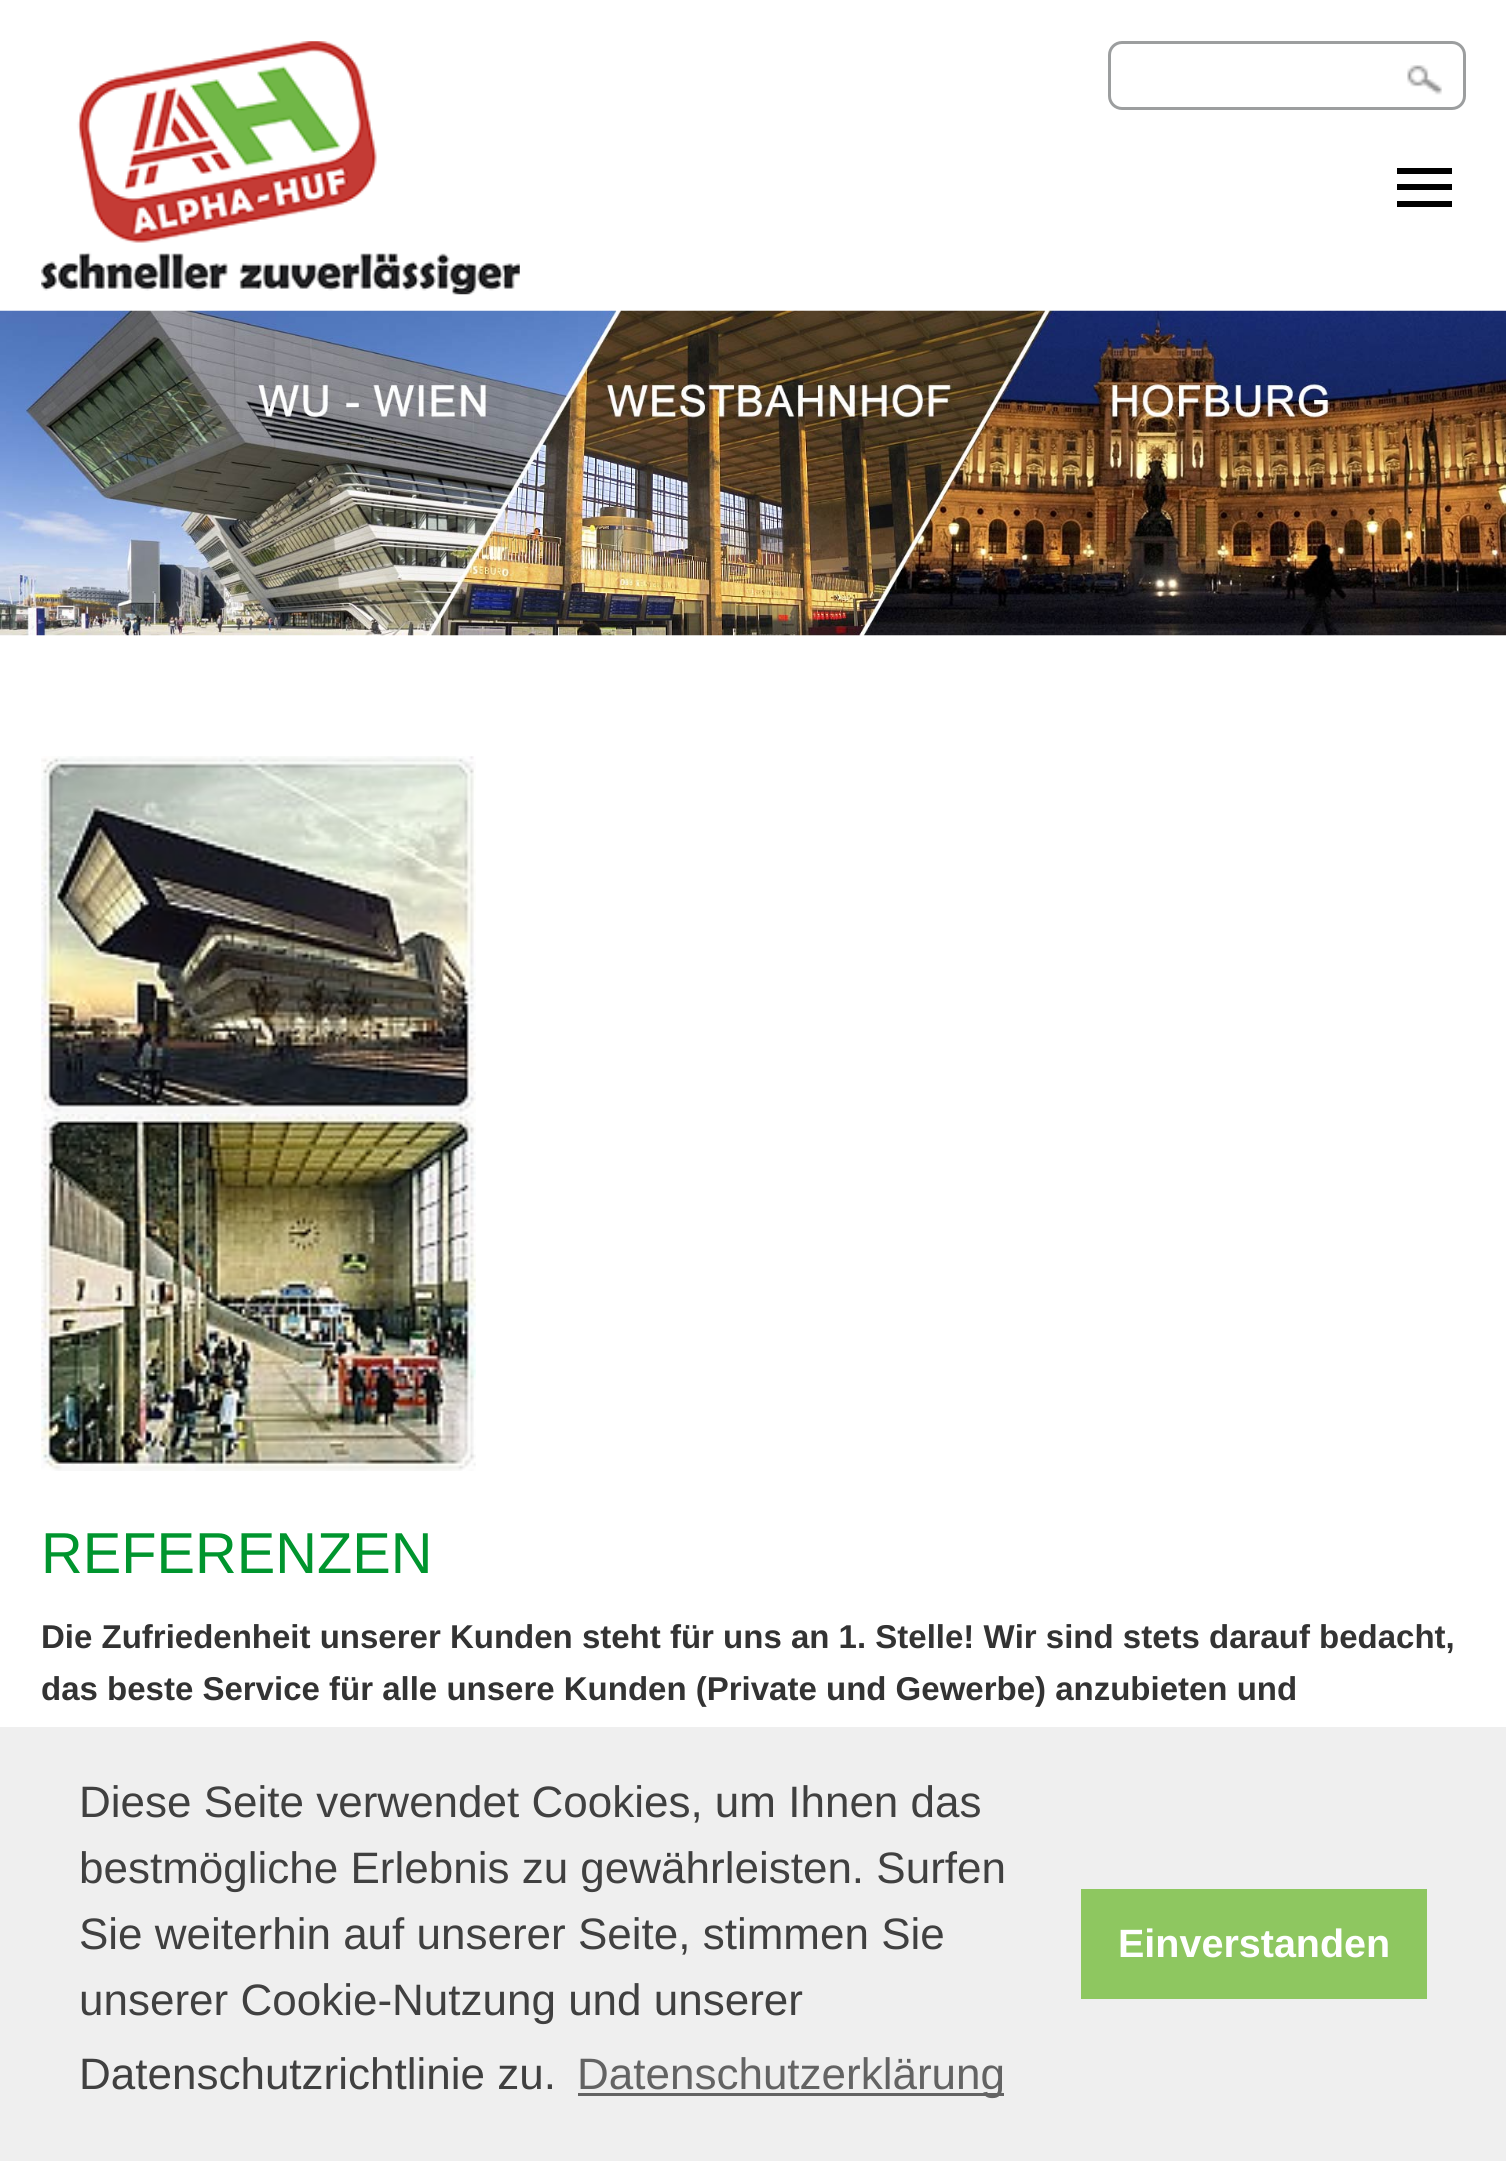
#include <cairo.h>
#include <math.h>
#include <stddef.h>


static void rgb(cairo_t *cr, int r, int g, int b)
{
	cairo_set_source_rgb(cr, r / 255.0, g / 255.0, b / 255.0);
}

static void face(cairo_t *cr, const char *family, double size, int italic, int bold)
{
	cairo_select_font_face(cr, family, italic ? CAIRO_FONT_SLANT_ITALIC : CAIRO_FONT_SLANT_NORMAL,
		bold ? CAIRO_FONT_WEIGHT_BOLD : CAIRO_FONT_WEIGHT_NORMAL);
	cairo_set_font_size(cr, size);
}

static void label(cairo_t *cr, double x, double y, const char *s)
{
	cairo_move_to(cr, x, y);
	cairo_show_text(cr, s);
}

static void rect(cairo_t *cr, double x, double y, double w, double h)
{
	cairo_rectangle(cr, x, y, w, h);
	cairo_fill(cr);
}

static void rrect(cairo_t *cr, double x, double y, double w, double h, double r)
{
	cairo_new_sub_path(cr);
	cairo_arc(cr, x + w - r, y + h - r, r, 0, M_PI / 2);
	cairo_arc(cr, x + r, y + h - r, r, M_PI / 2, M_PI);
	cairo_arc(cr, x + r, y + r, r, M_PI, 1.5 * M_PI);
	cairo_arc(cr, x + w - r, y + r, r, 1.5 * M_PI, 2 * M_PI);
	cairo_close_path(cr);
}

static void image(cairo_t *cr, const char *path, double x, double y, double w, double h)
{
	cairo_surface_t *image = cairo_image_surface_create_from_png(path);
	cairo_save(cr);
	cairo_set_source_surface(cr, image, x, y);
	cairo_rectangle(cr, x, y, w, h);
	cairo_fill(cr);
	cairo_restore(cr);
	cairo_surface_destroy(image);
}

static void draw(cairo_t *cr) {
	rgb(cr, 255, 255, 255);
	cairo_paint(cr);
	image(cr, "image0.png", 41, 41, 479, 254);
	rrect(cr, 1109.5, 42.5, 355, 66, 12.5);
	rgb(cr, 156, 158, 159);
	cairo_set_line_width(cr, 3);
	cairo_stroke(cr);
	image(cr, "image1.png", 1407, 65, 35, 30);
	rgb(cr, 0, 0, 0);
	rect(cr, 1397, 168, 55, 6);
	rect(cr, 1397, 184, 55, 6);
	rect(cr, 1397, 201, 55, 6);
	image(cr, "image2.png", 0, 310, 1506, 326);
	image(cr, "image3.png", 41, 756, 435, 358);
	image(cr, "image4.png", 41, 1114, 435, 357);
	face(cr, "Liberation Sans", 57.75, 0, 0);
	rgb(cr, 0, 149, 46);
	label(cr, 41, 1573, "REFERENZEN");
	face(cr, "Liberation Sans", 33, 0, 1);
	rgb(cr, 51, 51, 51);
	label(cr, 41, 1648, "Die Zufriedenheit unserer Kunden steht für uns an 1. Stelle! Wir sind stets darauf bedacht,");
	label(cr, 41, 1700, "das beste Service für alle unsere Kunden (Private und Gewerbe) anzubieten und");
	rgb(cr, 239, 239, 239);
	rect(cr, 0, 1727, 1506, 434);
	face(cr, "Liberation Sans", 44, 0, 0);
	rgb(cr, 64, 64, 64);
	label(cr, 79, 1817, "Diese Seite verwendet Cookies, um Ihnen das");
	label(cr, 79, 1883, "bestmögliche Erlebnis zu gewährleisten. Surfen");
	label(cr, 79, 1949, "Sie weiterhin auf unserer Seite, stimmen Sie");
	label(cr, 79, 2015, "unserer Cookie-Nutzung und unserer");
	label(cr, 79, 2089, "Datenschutzrichtlinie zu.");
	rgb(cr, 99, 99, 99);
	rect(cr, 578, 2093, 426, 3);
	label(cr, 577, 2089, "Datenschutzerklärung");
	rgb(cr, 142, 199, 96);
	rect(cr, 1081, 1889, 346, 110);
	face(cr, "Liberation Sans", 39.5, 0, 1);
	rgb(cr, 255, 255, 255);
	label(cr, 1118, 1957, "Einverstanden");
}

int main(void) {
	cairo_surface_t *surface = cairo_image_surface_create(CAIRO_FORMAT_RGB24, 1506, 2161);
	cairo_t *cr = cairo_create(surface);
	cairo_font_options_t *options = cairo_font_options_create();
	cairo_font_options_set_hint_metrics(options, CAIRO_HINT_METRICS_OFF);
	cairo_font_options_set_hint_style(options, CAIRO_HINT_STYLE_NONE);
	cairo_set_font_options(cr, options);
	cairo_set_miter_limit(cr, 4);
	draw(cr);
	cairo_surface_write_to_png(surface, "render.png");
	cairo_font_options_destroy(options);
	cairo_destroy(cr);
	cairo_surface_destroy(surface);
	return 0;
}
